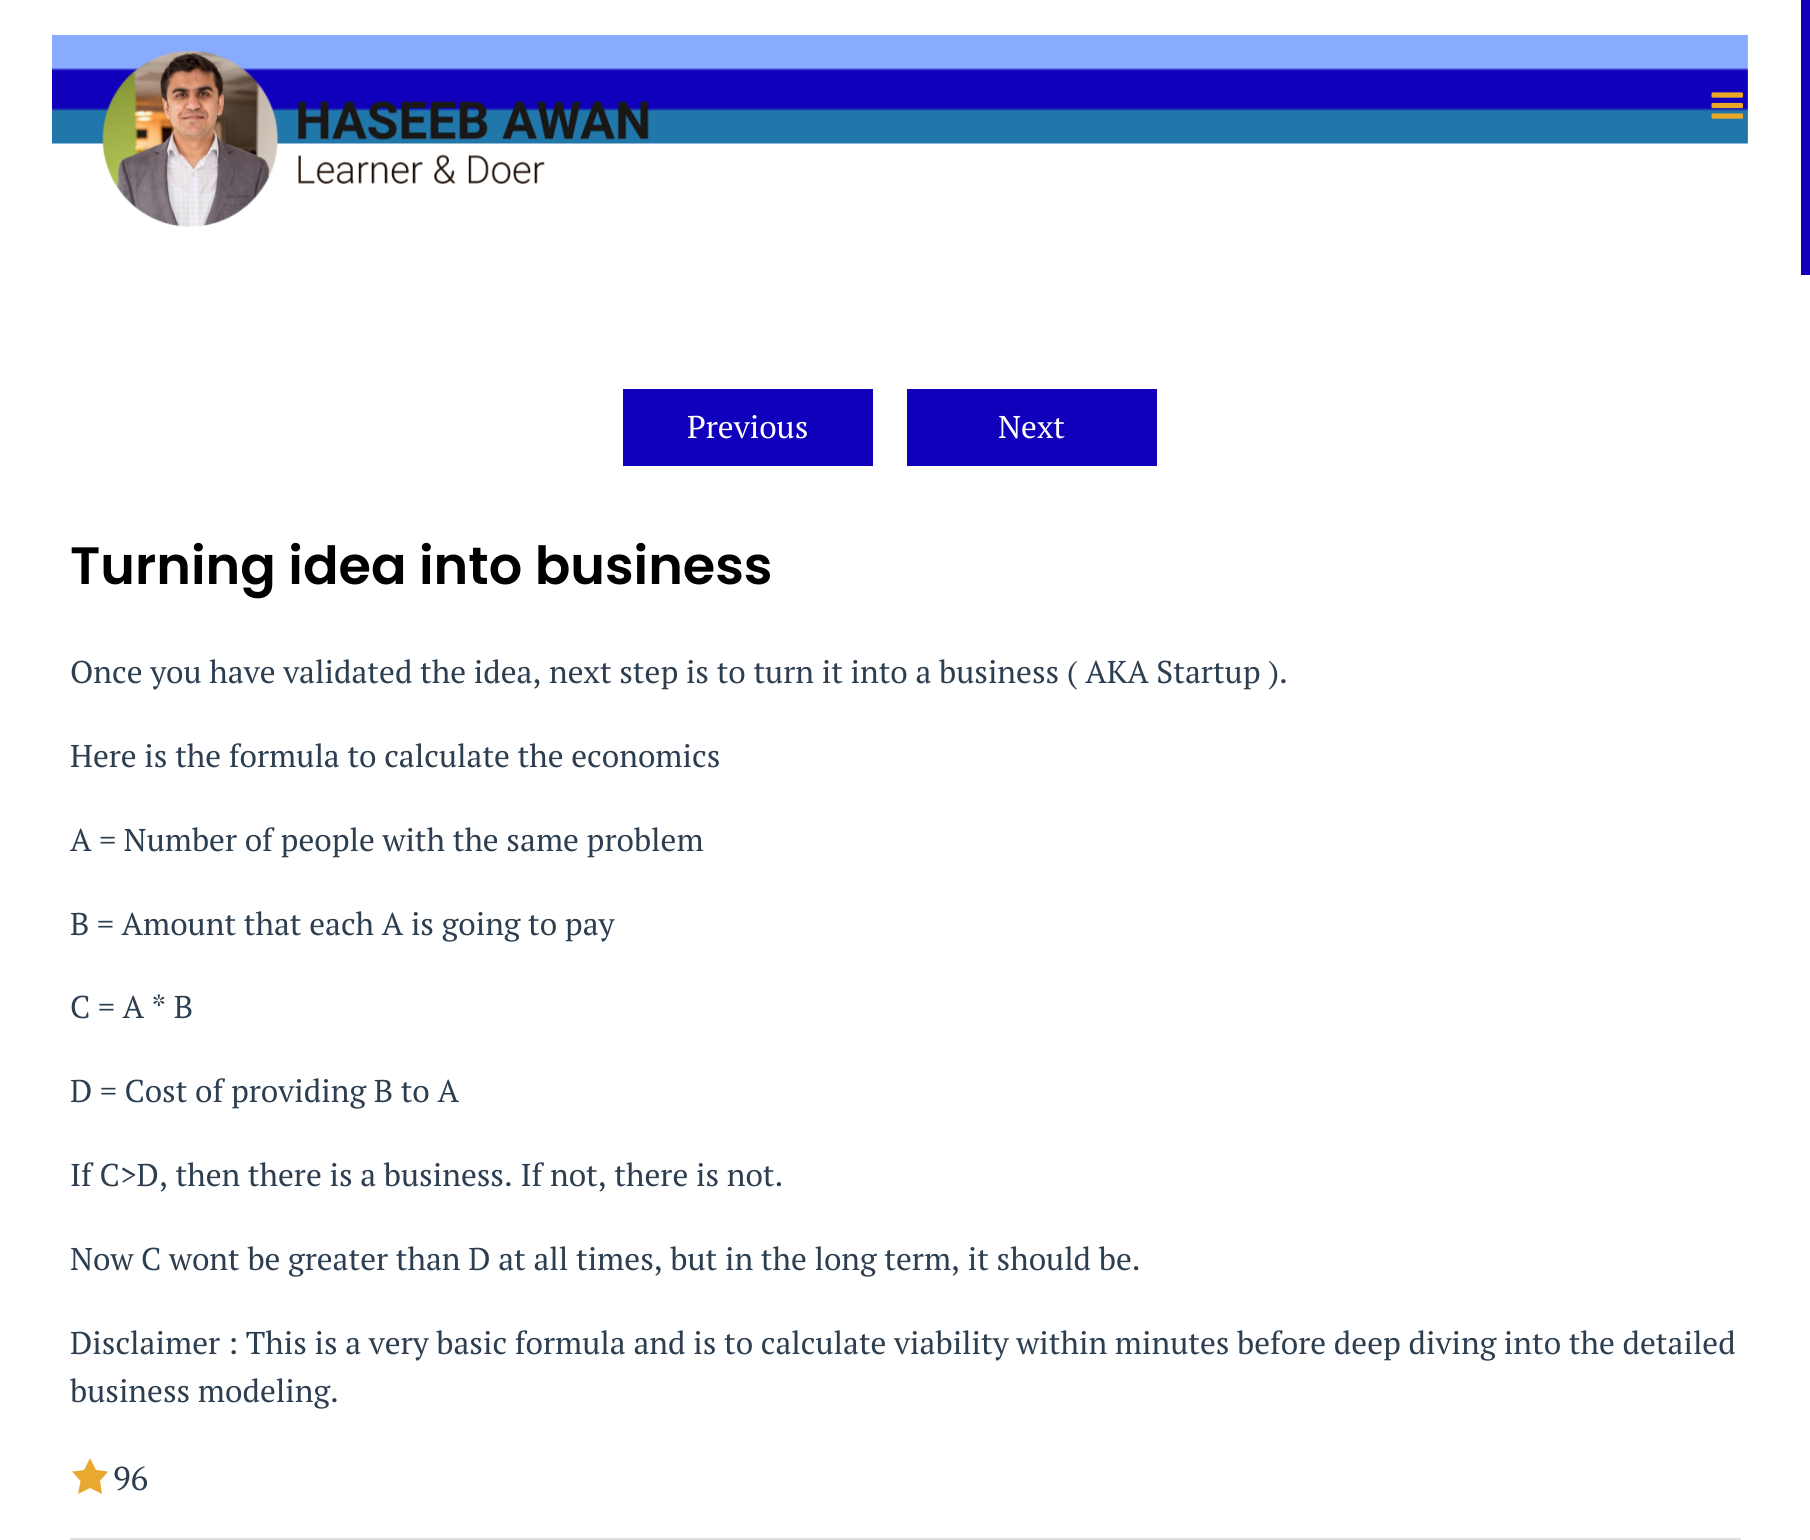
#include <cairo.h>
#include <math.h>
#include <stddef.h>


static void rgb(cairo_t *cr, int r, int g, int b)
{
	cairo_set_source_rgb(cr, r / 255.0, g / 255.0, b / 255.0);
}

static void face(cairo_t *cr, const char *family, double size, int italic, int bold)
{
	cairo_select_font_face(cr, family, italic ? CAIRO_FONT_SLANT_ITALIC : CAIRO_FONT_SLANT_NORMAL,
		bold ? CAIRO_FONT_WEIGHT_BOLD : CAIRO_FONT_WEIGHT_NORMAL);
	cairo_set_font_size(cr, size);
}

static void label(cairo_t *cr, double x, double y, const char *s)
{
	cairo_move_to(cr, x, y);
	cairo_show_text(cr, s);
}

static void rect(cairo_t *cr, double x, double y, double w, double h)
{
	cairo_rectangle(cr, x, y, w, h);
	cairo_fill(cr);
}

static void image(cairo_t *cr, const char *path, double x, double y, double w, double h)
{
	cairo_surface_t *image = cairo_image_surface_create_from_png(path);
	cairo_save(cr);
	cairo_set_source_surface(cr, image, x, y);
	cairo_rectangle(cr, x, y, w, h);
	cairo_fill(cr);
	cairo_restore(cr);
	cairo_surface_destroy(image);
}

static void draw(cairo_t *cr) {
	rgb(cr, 255, 255, 255);
	cairo_paint(cr);
	rgb(cr, 17, 0, 187);
	rect(cr, 1801, 0, 9, 275);
	image(cr, "image0.png", 52, 35, 1696, 109);
	image(cr, "image1.png", 102, 50, 547, 177);
	image(cr, "image2.png", 1711, 92, 32, 27);
	rect(cr, 623, 389, 250, 77);
	face(cr, "PT Serif", 31.5, 0, 0);
	rgb(cr, 255, 255, 255);
	label(cr, 687, 438, "Previous");
	rgb(cr, 17, 0, 187);
	rect(cr, 907, 389, 250, 77);
	rgb(cr, 255, 255, 255);
	label(cr, 998, 438, "Next");
	face(cr, "Poppins SemiBold", 52.5, 0, 0);
	rgb(cr, 0, 0, 0);
	label(cr, 70, 584, "Turning idea into business");
	face(cr, "PT Serif", 31.5, 0, 0);
	rgb(cr, 44, 62, 80);
	label(cr, 70, 683, "Once you have validated the idea, next step is to turn it into a business ( AKA Startup ).");
	label(cr, 70, 767, "Here is the formula to calculate the economics");
	label(cr, 70, 851, "A = Number of people with the same problem");
	label(cr, 70, 935, "B = Amount that each A is going to pay");
	label(cr, 70, 1018, "C = A * B");
	label(cr, 70, 1102, "D = Cost of providing B to A");
	label(cr, 70, 1186, "If C>D, then there is a business. If not, there is not.");
	label(cr, 70, 1270, "Now C wont be greater than D at all times, but in the long term, it should be.");
	label(cr, 70, 1354, "Disclaimer : This is a very basic formula and is to calculate viability within minutes before deep diving into the detailed");
	label(cr, 70, 1402, "business modeling.");
	rgb(cr, 233, 168, 48);
	cairo_new_path(cr);
	cairo_move_to(cr, 90, 1458);
	cairo_line_to(cr, 96, 1470);
	cairo_line_to(cr, 108, 1471.5);
	cairo_line_to(cr, 100, 1481);
	cairo_line_to(cr, 102, 1494);
	cairo_line_to(cr, 90, 1488);
	cairo_line_to(cr, 78, 1494);
	cairo_line_to(cr, 80.5, 1481);
	cairo_line_to(cr, 72, 1471.5);
	cairo_line_to(cr, 84, 1470);
	cairo_close_path(cr);
	cairo_fill(cr);
	face(cr, "PT Serif", 33, 0, 0);
	rgb(cr, 44, 62, 80);
	label(cr, 113, 1490, "96");
	rgb(cr, 224, 222, 222);
	rect(cr, 70, 1538, 1671, 2);
}

int main(void) {
	cairo_surface_t *surface = cairo_image_surface_create(CAIRO_FORMAT_RGB24, 1810, 1540);
	cairo_t *cr = cairo_create(surface);
	cairo_font_options_t *options = cairo_font_options_create();
	cairo_font_options_set_hint_metrics(options, CAIRO_HINT_METRICS_OFF);
	cairo_font_options_set_hint_style(options, CAIRO_HINT_STYLE_NONE);
	cairo_set_font_options(cr, options);
	cairo_set_miter_limit(cr, 4);
	draw(cr);
	cairo_surface_write_to_png(surface, "render.png");
	cairo_font_options_destroy(options);
	cairo_destroy(cr);
	cairo_surface_destroy(surface);
	return 0;
}
